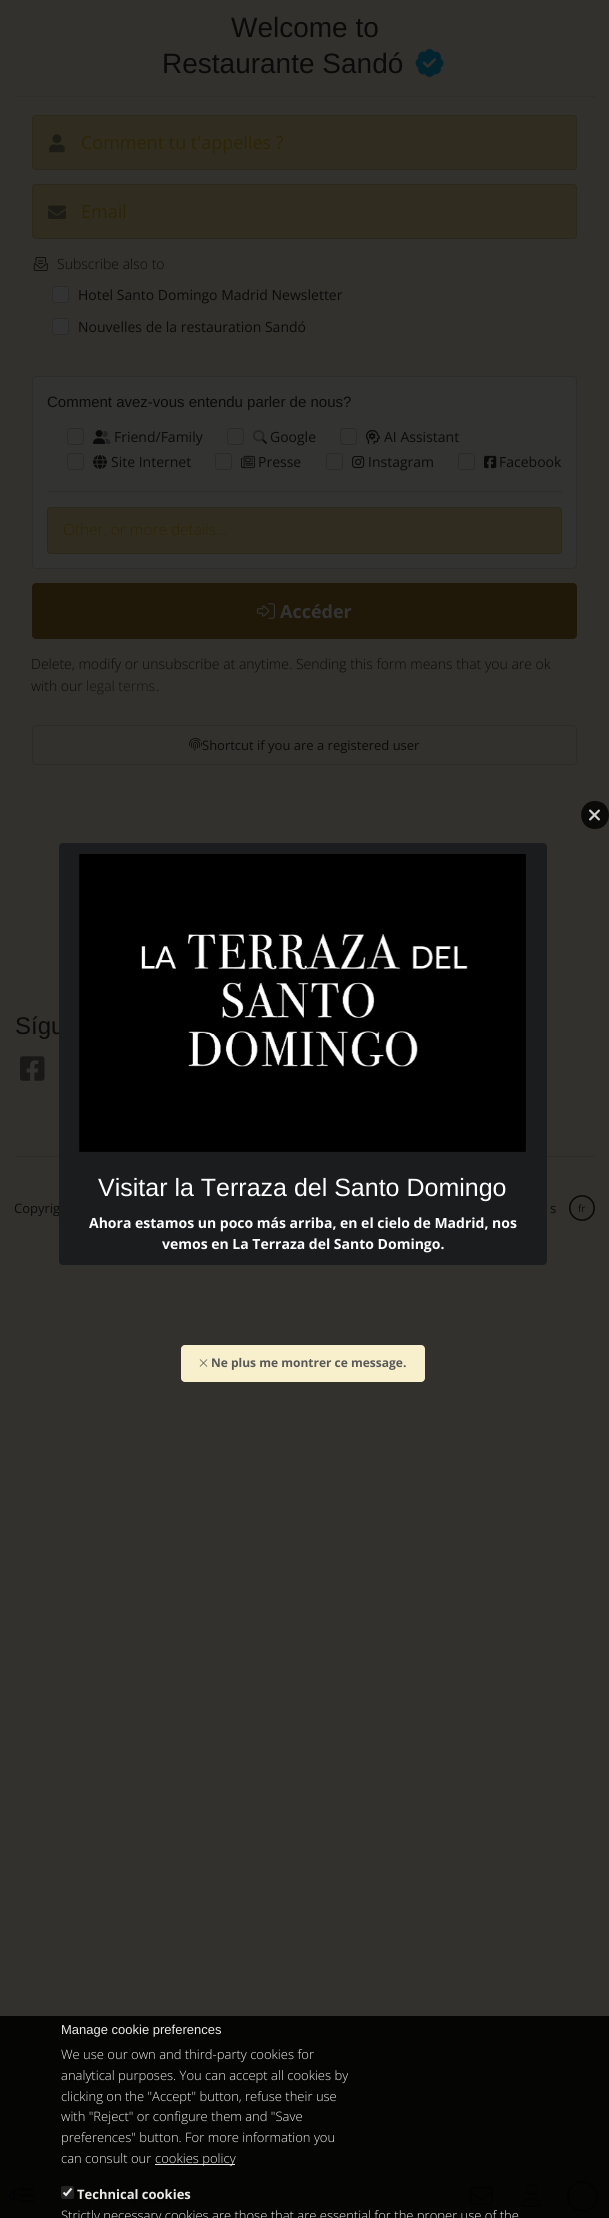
#include <cairo.h>
#include <math.h>
#include <stddef.h>


static void rgb(cairo_t *cr, int r, int g, int b)
{
	cairo_set_source_rgb(cr, r / 255.0, g / 255.0, b / 255.0);
}

static void face(cairo_t *cr, const char *family, double size, int italic, int bold)
{
	cairo_select_font_face(cr, family, italic ? CAIRO_FONT_SLANT_ITALIC : CAIRO_FONT_SLANT_NORMAL,
		bold ? CAIRO_FONT_WEIGHT_BOLD : CAIRO_FONT_WEIGHT_NORMAL);
	cairo_set_font_size(cr, size);
}

static void label(cairo_t *cr, double x, double y, const char *s)
{
	cairo_move_to(cr, x, y);
	cairo_show_text(cr, s);
}

static void rect(cairo_t *cr, double x, double y, double w, double h)
{
	cairo_rectangle(cr, x, y, w, h);
	cairo_fill(cr);
}

static void rrect(cairo_t *cr, double x, double y, double w, double h, double r)
{
	cairo_new_sub_path(cr);
	cairo_arc(cr, x + w - r, y + h - r, r, 0, M_PI / 2);
	cairo_arc(cr, x + r, y + h - r, r, M_PI / 2, M_PI);
	cairo_arc(cr, x + r, y + r, r, M_PI, 1.5 * M_PI);
	cairo_arc(cr, x + w - r, y + r, r, 1.5 * M_PI, 2 * M_PI);
	cairo_close_path(cr);
}

static void image(cairo_t *cr, const char *path, double x, double y, double w, double h)
{
	cairo_surface_t *image = cairo_image_surface_create_from_png(path);
	cairo_save(cr);
	cairo_set_source_surface(cr, image, x, y);
	cairo_rectangle(cr, x, y, w, h);
	cairo_fill(cr);
	cairo_restore(cr);
	cairo_surface_destroy(image);
}

static void draw(cairo_t *cr) {
	rgb(cr, 50, 49, 45);
	cairo_paint(cr);
	rgb(cr, 5, 5, 4);
	rect(cr, 0, 2016, 609, 202);
	face(cr, "Liberation Sans", 28, 0, 0);
	rgb(cr, 10, 10, 10);
	label(cr, 231, 37, "Welcome to");
	label(cr, 162, 73, "Restaurante Sandó");
	image(cr, "image0.png", 415, 49, 29, 28);
	rgb(cr, 46, 45, 41);
	rect(cr, 14, 96, 581, 1);
	rgb(cr, 48, 45, 32);
	rrect(cr, 32, 115, 545, 55, 4);
	cairo_fill(cr);
	rrect(cr, 32.5, 115.5, 544, 54, 3.5);
	cairo_set_source_rgba(cr, 0.027, 0.027, 0.031, 0.15);
	cairo_set_line_width(cr, 1);
	cairo_stroke(cr);
	image(cr, "image1.png", 49, 134, 16, 19);
	face(cr, "Open Sans", 18, 0, 0);
	rgb(cr, 44, 36, 6);
	label(cr, 81, 149, "Comment tu t'appelles ?");
	rrect(cr, 458.5, 184.5, 118, 39, 3.5);
	rgb(cr, 44, 43, 40);
	cairo_stroke(cr);
	rgb(cr, 48, 45, 32);
	rrect(cr, 32, 184, 545, 55, 4);
	cairo_fill(cr);
	rrect(cr, 32.5, 184.5, 544, 54, 3.5);
	cairo_set_source_rgba(cr, 0.027, 0.027, 0.031, 0.15);
	cairo_stroke(cr);
	image(cr, "image2.png", 48, 205, 18, 14);
	rgb(cr, 44, 36, 6);
	label(cr, 81, 218, "Email");
	image(cr, "image3.png", 33, 257, 15, 14);
	face(cr, "Open Sans Light", 14, 0, 0);
	rgb(cr, 10, 10, 10);
	label(cr, 57, 269, "Subscribe also to");
	rgb(cr, 51, 51, 51);
	rrect(cr, 52.5, 286.5, 16, 16, 2.5);
	cairo_fill_preserve(cr);
	rgb(cr, 42, 42, 43);
	cairo_stroke(cr);
	face(cr, "Open Sans", 14, 0, 0);
	rgb(cr, 10, 10, 10);
	label(cr, 78, 300, "Hotel Santo Domingo Madrid Newsletter");
	rgb(cr, 51, 51, 51);
	rrect(cr, 52.5, 318.5, 16, 16, 2.5);
	cairo_fill_preserve(cr);
	rgb(cr, 42, 42, 43);
	cairo_stroke(cr);
	rgb(cr, 10, 10, 10);
	label(cr, 78, 332, "Nouvelles de la restauration Sandó");
	rgb(cr, 51, 51, 50);
	rrect(cr, 32, 376, 545, 193, 4);
	cairo_fill(cr);
	rrect(cr, 32.5, 376.5, 544, 192, 3.5);
	cairo_set_source_rgba(cr, 0.027, 0.027, 0.031, 0.15);
	cairo_stroke(cr);
	face(cr, "Liberation Sans", 15, 0, 0);
	rgb(cr, 10, 10, 10);
	label(cr, 47, 407, "Comment avez-vous entendu parler de nous?");
	rrect(cr, 67.5, 428.5, 16, 16, 2.5);
	rgb(cr, 42, 42, 43);
	cairo_stroke(cr);
	image(cr, "image4.png", 93, 430, 18, 14);
	face(cr, "Open Sans", 14, 0, 0);
	rgb(cr, 10, 10, 10);
	label(cr, 114, 442, "Friend/Family");
	rrect(cr, 227.5, 428.5, 16, 16, 2.5);
	rgb(cr, 42, 42, 43);
	cairo_stroke(cr);
	image(cr, "image5.png", 253, 430, 14, 14);
	rgb(cr, 10, 10, 10);
	label(cr, 270, 442, "Google");
	rrect(cr, 340.5, 428.5, 16, 16, 2.5);
	rgb(cr, 42, 42, 43);
	cairo_stroke(cr);
	image(cr, "image6.png", 366, 430, 14, 14);
	rgb(cr, 10, 10, 10);
	label(cr, 384, 442, "AI Assistant");
	rrect(cr, 67.5, 453.5, 16, 16, 2.5);
	rgb(cr, 42, 42, 43);
	cairo_stroke(cr);
	image(cr, "image7.png", 93, 455, 14, 14);
	rgb(cr, 10, 10, 10);
	label(cr, 111, 467, "Site Internet");
	rrect(cr, 215.5, 453.5, 16, 16, 2.5);
	rgb(cr, 42, 42, 43);
	cairo_stroke(cr);
	image(cr, "image8.png", 241, 455, 14, 14);
	rgb(cr, 10, 10, 10);
	label(cr, 258, 467, "Presse");
	rrect(cr, 326.5, 453.5, 16, 16, 2.5);
	rgb(cr, 42, 42, 43);
	cairo_stroke(cr);
	image(cr, "image9.png", 352, 455, 13, 14);
	rgb(cr, 10, 10, 10);
	label(cr, 368, 467, "Instagram");
	rrect(cr, 458.5, 453.5, 16, 16, 2.5);
	rgb(cr, 42, 42, 43);
	cairo_stroke(cr);
	image(cr, "image10.png", 484, 455, 13, 14);
	rgb(cr, 10, 10, 10);
	label(cr, 499, 467, "Facebook");
	rgb(cr, 44, 44, 43);
	rect(cr, 47, 491, 515, 1);
	rgb(cr, 48, 45, 32);
	rrect(cr, 47, 507, 515, 47, 4);
	cairo_fill(cr);
	rrect(cr, 47.5, 507.5, 514, 46, 3.5);
	cairo_set_source_rgba(cr, 0.027, 0.027, 0.031, 0.15);
	cairo_stroke(cr);
	face(cr, "Open Sans Light", 15.4, 0, 0);
	rgb(cr, 44, 36, 6);
	label(cr, 63, 535, "Other, or more details...");
	rgb(cr, 31, 24, 8);
	rrect(cr, 32, 583, 545, 56, 4);
	cairo_fill(cr);
	image(cr, "image11.png", 257, 603, 18, 16);
	face(cr, "Open Sans", 18, 0, 1);
	rgb(cr, 51, 51, 51);
	label(cr, 280, 618, "Accéder");
	face(cr, "Open Sans Light", 14, 0, 0);
	rgb(cr, 10, 10, 10);
	label(cr, 31, 669, "Delete, modify or unsubscribe at anytime. Sending this form means that you are ok");
	label(cr, 31, 691, "with our");
	rgb(cr, 18, 18, 18);
	label(cr, 86, 691, "legal terms");
	rgb(cr, 10, 10, 10);
	label(cr, 156, 691, ".");
	rrect(cr, 32.5, 725.5, 544, 39, 3.5);
	rgb(cr, 44, 43, 40);
	cairo_stroke(cr);
	image(cr, "image12.png", 189, 738, 13, 13);
	face(cr, "Open Sans", 13, 0, 0);
	rgb(cr, 10, 10, 10);
	label(cr, 202, 750, "Shortcut if you are a registered user");
	face(cr, "Liberation Sans", 24, 0, 0);
	label(cr, 15, 1034, "Sígu");
	image(cr, "image13.png", 20, 1056, 25, 25);
	rgb(cr, 44, 43, 40);
	rect(cr, 15, 1156, 579, 1);
	face(cr, "Open Sans", 13, 0, 0);
	rgb(cr, 10, 10, 10);
	label(cr, 14, 1213, "Copyrig");
	label(cr, 550, 1213, "s");
	image(cr, "image14.png", 569, 1195, 26, 26);
	face(cr, "Open Sans", 10, 0, 0);
	label(cr, 578, 1212, "fr");
	cairo_set_source_rgba(cr, 0, 0, 0, 0.8);
	cairo_new_path(cr);
	cairo_move_to(cr, 595, 829);
	cairo_curve_to(cr, 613.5, 829, 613.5, 801, 595, 801);
	cairo_curve_to(cr, 576.5, 801, 576.5, 829, 595, 829);
	cairo_close_path(cr);
	cairo_fill(cr);
	image(cr, "image15.png", 589, 809, 11, 12);
	rgb(cr, 27, 28, 29);
	rrect(cr, 59, 843, 488, 422, 4);
	cairo_fill(cr);
	image(cr, "image16.png", 79, 854, 447, 298);
	face(cr, "Liberation Sans", 25, 0, 0);
	rgb(cr, 255, 255, 255);
	label(cr, 98, 1196, "Visitar la Terraza del Santo Domingo");
	face(cr, "Open Sans", 14, 0, 1);
	label(cr, 89, 1228, "Ahora estamos un poco más arriba, en el cielo de Madrid, nos");
	label(cr, 162, 1249, "vemos en La Terraza del Santo Domingo.");
	rgb(cr, 248, 239, 204);
	rrect(cr, 181, 1345, 244, 37, 4);
	cairo_fill(cr);
	image(cr, "image17.png", 199, 1359, 9, 8);
	face(cr, "Open Sans", 12, 0, 1);
	rgb(cr, 89, 89, 89);
	label(cr, 211, 1367, "Ne plus me montrer ce message.");
	face(cr, "Liberation Sans", 13, 0, 0);
	rgb(cr, 235, 234, 234);
	label(cr, 61, 2034, "Manage cookie preferences");
	face(cr, "Open Sans Light", 13, 0, 0);
	label(cr, 61, 2059, "We use our own and third-party cookies for");
	label(cr, 61, 2080, "analytical purposes. You can accept all cookies by");
	label(cr, 61, 2101, "clicking on the \"Accept\" button, refuse their use");
	label(cr, 61, 2121, "with \"Reject\" or configure them and \"Save");
	label(cr, 61, 2142, "preferences\" button. For more information you");
	label(cr, 61, 2163, "can consult our");
	rect(cr, 155, 2164, 80, 1);
	label(cr, 155, 2163, "cookies policy");
	image(cr, "image20.png", 60, 2188, 113, 17);
	rgb(cr, 35, 35, 35);
	rrect(cr, 61, 2186, 13, 13, 2);
	cairo_fill(cr);
	cairo_new_path(cr);
	cairo_move_to(cr, 63.5, 2192.5);
	cairo_line_to(cr, 66, 2195);
	cairo_line_to(cr, 71.5, 2188.5);
	rgb(cr, 233, 233, 233);
	cairo_set_line_width(cr, 2.1);
	cairo_stroke(cr);
	face(cr, "Open Sans", 13, 0, 1);
	rgb(cr, 235, 234, 234);
	label(cr, 77, 2199, "Technical cookies");
	face(cr, "Open Sans Light", 13, 0, 0);
	label(cr, 61, 2220, "Strictly necessary cookies are those that are essential for the proper use of the");
	image(cr, "image18.png", 8, 2189, 8, 13);
	image(cr, "image19.png", 18, 2188, 17, 15);
	image(cr, "image21.png", 469, 2186, 24, 19);
	image(cr, "image22.png", 521, 2184, 21, 24);
	image(cr, "image23.png", 567, 2181, 31, 31);
}

int main(void) {
	cairo_surface_t *surface = cairo_image_surface_create(CAIRO_FORMAT_RGB24, 609, 2218);
	cairo_t *cr = cairo_create(surface);
	cairo_font_options_t *options = cairo_font_options_create();
	cairo_font_options_set_hint_metrics(options, CAIRO_HINT_METRICS_OFF);
	cairo_font_options_set_hint_style(options, CAIRO_HINT_STYLE_NONE);
	cairo_set_font_options(cr, options);
	cairo_set_miter_limit(cr, 4);
	draw(cr);
	cairo_surface_write_to_png(surface, "render.png");
	cairo_font_options_destroy(options);
	cairo_destroy(cr);
	cairo_surface_destroy(surface);
	return 0;
}
